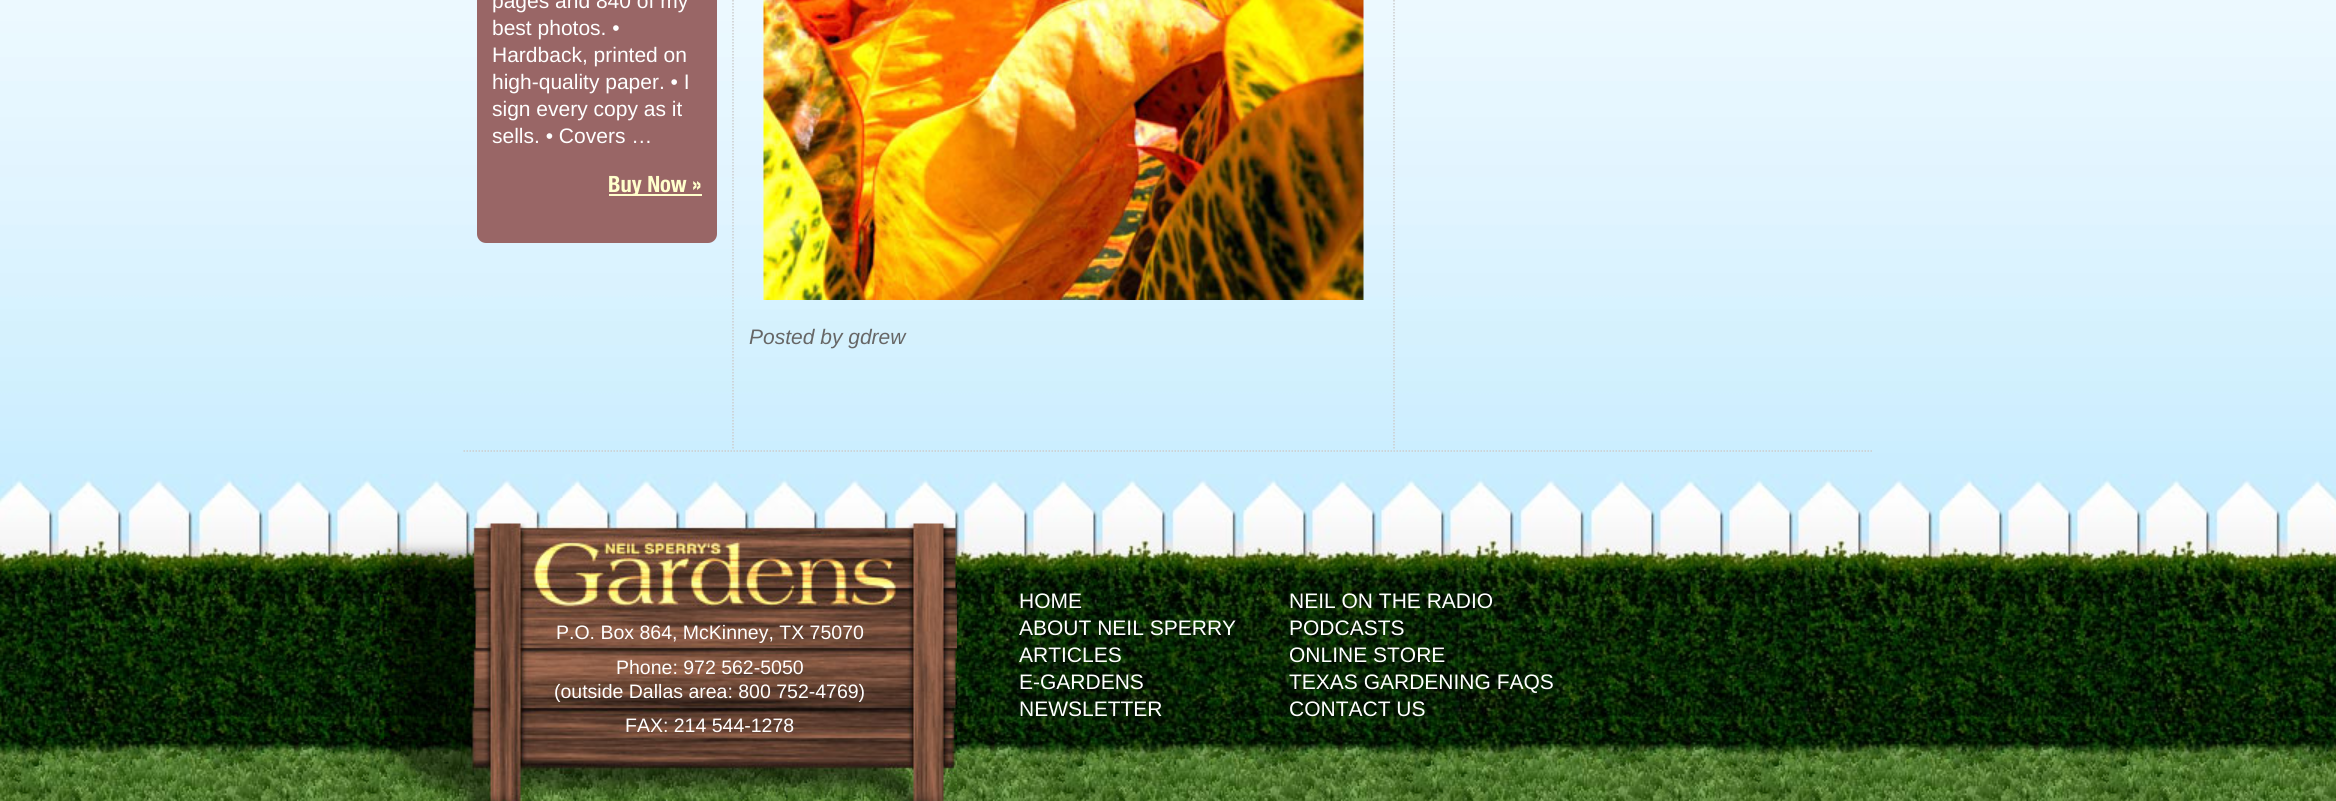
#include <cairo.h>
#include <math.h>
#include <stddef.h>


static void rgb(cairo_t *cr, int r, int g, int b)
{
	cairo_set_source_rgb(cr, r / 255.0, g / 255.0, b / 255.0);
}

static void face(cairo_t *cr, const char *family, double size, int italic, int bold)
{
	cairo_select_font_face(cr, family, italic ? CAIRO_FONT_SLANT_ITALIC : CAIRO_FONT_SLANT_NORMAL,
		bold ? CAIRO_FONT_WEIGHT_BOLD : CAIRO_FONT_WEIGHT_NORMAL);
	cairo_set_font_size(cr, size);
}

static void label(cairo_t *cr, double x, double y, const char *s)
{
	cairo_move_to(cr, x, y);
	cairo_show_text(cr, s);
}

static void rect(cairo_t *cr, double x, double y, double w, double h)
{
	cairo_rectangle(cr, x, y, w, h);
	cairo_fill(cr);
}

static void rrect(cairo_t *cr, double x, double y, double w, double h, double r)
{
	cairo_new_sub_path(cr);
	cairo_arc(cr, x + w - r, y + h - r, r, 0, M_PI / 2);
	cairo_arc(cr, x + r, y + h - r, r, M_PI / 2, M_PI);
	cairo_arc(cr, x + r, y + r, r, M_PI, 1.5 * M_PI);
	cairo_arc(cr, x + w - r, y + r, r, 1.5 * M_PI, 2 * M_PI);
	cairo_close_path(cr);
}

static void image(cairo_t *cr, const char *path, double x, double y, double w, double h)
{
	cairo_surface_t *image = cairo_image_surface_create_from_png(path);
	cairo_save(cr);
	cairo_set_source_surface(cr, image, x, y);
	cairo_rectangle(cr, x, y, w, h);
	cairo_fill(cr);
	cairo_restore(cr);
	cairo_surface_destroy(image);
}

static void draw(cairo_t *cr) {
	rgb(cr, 255, 255, 255);
	cairo_paint(cr);
	image(cr, "image0.png", 0, 0, 2336, 474);
	cairo_new_path(cr);
	cairo_move_to(cr, 463.5, 451);
	cairo_line_to(cr, 1873.5, 451);
	rgb(cr, 204, 204, 204);
	cairo_set_line_width(cr, 1.5);
	cairo_set_dash(cr, (double[]){1.5, 1.5}, 2, 0);
	cairo_stroke(cr);
	cairo_save(cr);
	cairo_rectangle(cr, 464, 0, 1410, 450);
	cairo_clip(cr);
	cairo_new_path(cr);
	cairo_move_to(cr, 733, -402);
	cairo_line_to(cr, 733, 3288);
	cairo_stroke(cr);
	cairo_restore(cr);
	rgb(cr, 153, 102, 102);
	rrect(cr, 477, -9, 240, 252, 9);
	cairo_fill(cr);
	face(cr, "Liberation Sans", 21, 0, 0);
	rgb(cr, 255, 255, 255);
	label(cr, 492, 8, "pages and 840 of my");
	label(cr, 492, 35, "best photos. •");
	label(cr, 492, 62, "Hardback, printed on");
	label(cr, 492, 89, "high-quality paper. • I");
	label(cr, 492, 116, "sign every copy as it");
	label(cr, 492, 143, "sells. • Covers …");
	rgb(cr, 255, 255, 204);
	rect(cr, 609, 194, 93, 2);
	face(cr, "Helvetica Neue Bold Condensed", 22.5, 0, 1);
	label(cr, 608, 192, "Buy Now »");
	image(cr, "image1.png", 763, 0, 601, 300);
	face(cr, "Liberation Sans", 21, 1, 0);
	rgb(cr, 102, 102, 102);
	label(cr, 749, 344, "Posted by gdrew");
	cairo_save(cr);
	cairo_rectangle(cr, 464, 0, 1410, 450);
	cairo_clip(cr);
	cairo_new_path(cr);
	cairo_move_to(cr, 1394, -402);
	cairo_line_to(cr, 1394, 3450);
	rgb(cr, 204, 204, 204);
	cairo_stroke(cr);
	cairo_restore(cr);
	image(cr, "image2.png", 0, 474, 2336, 327);
	image(cr, "image3.png", 379, 523, 578, 278);
	face(cr, "Liberation Sans", 19.5, 0, 0);
	rgb(cr, 255, 255, 255);
	label(cr, 556, 639, "P.O. Box 864, McKinney, TX 75070");
	label(cr, 616, 674, "Phone: 972 562-5050");
	label(cr, 554, 698, "(outside Dallas area: 800 752-4769)");
	label(cr, 625, 732, "FAX: 214 544-1278");
	face(cr, "Liberation Sans", 21, 0, 0);
	label(cr, 1019, 608, "HOME");
	label(cr, 1019, 635, "ABOUT NEIL SPERRY");
	label(cr, 1019, 662, "ARTICLES");
	label(cr, 1019, 689, "E-GARDENS");
	label(cr, 1019, 716, "NEWSLETTER");
	label(cr, 1289, 608, "NEIL ON THE RADIO");
	label(cr, 1289, 635, "PODCASTS");
	label(cr, 1289, 662, "ONLINE STORE");
	label(cr, 1289, 689, "TEXAS GARDENING FAQS");
	label(cr, 1289, 716, "CONTACT US");
}

int main(void) {
	cairo_surface_t *surface = cairo_image_surface_create(CAIRO_FORMAT_RGB24, 2336, 801);
	cairo_t *cr = cairo_create(surface);
	cairo_font_options_t *options = cairo_font_options_create();
	cairo_font_options_set_hint_metrics(options, CAIRO_HINT_METRICS_OFF);
	cairo_font_options_set_hint_style(options, CAIRO_HINT_STYLE_NONE);
	cairo_set_font_options(cr, options);
	cairo_set_miter_limit(cr, 4);
	draw(cr);
	cairo_surface_write_to_png(surface, "render.png");
	cairo_font_options_destroy(options);
	cairo_destroy(cr);
	cairo_surface_destroy(surface);
	return 0;
}
